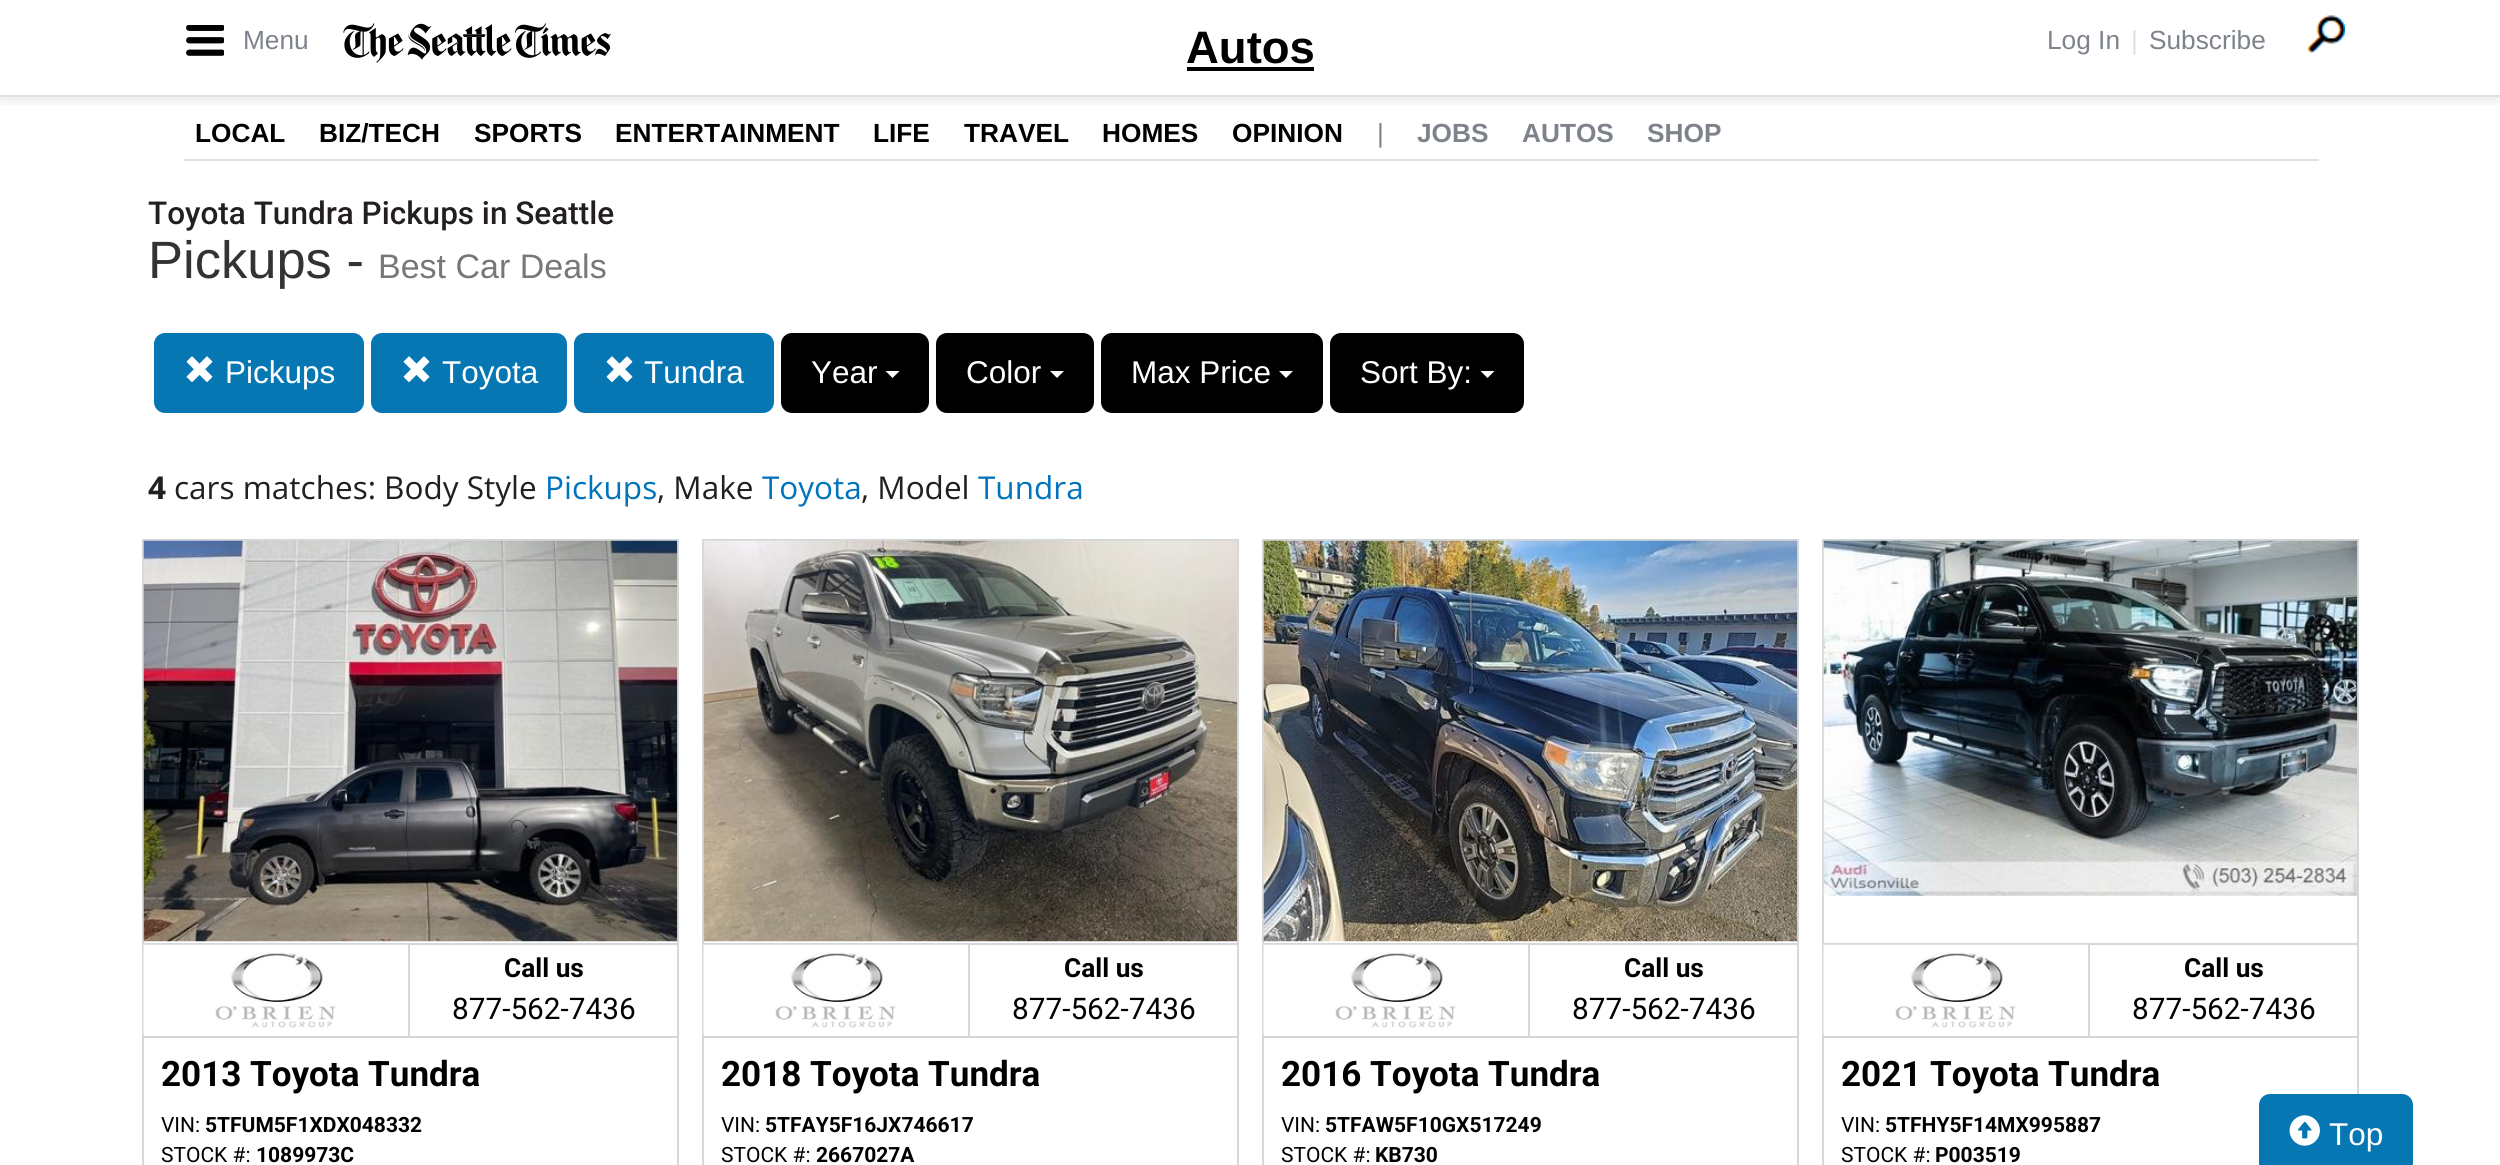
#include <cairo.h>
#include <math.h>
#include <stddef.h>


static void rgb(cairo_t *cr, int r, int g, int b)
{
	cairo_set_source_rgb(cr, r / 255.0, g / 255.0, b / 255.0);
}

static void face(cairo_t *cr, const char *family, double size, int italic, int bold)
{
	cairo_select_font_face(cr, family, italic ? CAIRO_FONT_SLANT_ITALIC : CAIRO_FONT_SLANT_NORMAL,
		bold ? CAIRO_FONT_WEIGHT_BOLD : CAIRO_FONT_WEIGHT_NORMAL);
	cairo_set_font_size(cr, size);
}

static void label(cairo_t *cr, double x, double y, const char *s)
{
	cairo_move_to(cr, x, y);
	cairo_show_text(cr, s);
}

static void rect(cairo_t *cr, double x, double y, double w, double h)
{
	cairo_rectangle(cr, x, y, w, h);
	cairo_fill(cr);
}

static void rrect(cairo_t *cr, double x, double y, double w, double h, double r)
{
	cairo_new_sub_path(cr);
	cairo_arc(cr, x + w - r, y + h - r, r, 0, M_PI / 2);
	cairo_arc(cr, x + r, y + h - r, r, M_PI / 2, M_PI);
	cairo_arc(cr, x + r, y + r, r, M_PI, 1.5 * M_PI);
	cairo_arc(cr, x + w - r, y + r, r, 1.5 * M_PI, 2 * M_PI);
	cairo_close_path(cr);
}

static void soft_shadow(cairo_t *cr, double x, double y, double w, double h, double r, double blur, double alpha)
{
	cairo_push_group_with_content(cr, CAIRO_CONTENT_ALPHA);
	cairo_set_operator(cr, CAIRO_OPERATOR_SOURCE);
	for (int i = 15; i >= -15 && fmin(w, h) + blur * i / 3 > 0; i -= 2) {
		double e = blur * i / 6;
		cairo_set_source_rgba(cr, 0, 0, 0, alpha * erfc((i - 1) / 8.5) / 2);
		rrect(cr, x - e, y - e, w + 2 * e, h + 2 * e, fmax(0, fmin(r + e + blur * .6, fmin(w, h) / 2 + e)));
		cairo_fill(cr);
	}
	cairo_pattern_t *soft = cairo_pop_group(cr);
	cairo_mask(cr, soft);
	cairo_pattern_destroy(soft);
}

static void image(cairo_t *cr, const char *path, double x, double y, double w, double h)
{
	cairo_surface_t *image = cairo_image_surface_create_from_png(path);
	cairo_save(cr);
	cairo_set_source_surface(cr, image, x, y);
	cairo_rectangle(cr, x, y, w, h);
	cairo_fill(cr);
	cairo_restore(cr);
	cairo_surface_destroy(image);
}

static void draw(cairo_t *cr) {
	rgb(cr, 255, 255, 255);
	cairo_paint(cr);
	cairo_save(cr);
	cairo_rectangle(cr, 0, 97, 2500, 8);
	cairo_clip(cr);
	rgb(cr, 0, 0, 0);
	soft_shadow(cr, 0, 2, 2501, 98, 0, 6, 0.1);
	cairo_restore(cr);
	rgb(cr, 224, 224, 224);
	rect(cr, 0, 95, 2500, 2);
	image(cr, "image0.png", 186, 25, 38, 31);
	face(cr, "Liberation Sans", 26.25, 0, 0);
	rgb(cr, 126, 131, 139);
	label(cr, 243, 49, "Menu");
	image(cr, "image1.png", 343, 23, 268, 40);
	label(cr, 2047, 49, "Log In");
	rgb(cr, 224, 224, 224);
	label(cr, 2131, 49, "|");
	rgb(cr, 126, 131, 139);
	label(cr, 2149, 49, "Subscribe");
	image(cr, "image2.png", 2308, 15, 37, 38);
	face(cr, "Liberation Sans", 45.5, 0, 1);
	rgb(cr, 0, 0, 0);
	label(cr, 1186, 63, "Autos");
	rect(cr, 1187, 67, 127, 4);
	rgb(cr, 224, 224, 224);
	rect(cr, 184, 159, 2135, 2);
	face(cr, "Liberation Sans", 26.25, 0, 1);
	rgb(cr, 0, 0, 0);
	label(cr, 195, 142, "LOCAL");
	label(cr, 319, 142, "BIZ/TECH");
	label(cr, 474, 142, "SPORTS");
	label(cr, 615, 142, "ENTERTAINMENT");
	label(cr, 873, 142, "LIFE");
	label(cr, 964, 142, "TRAVEL");
	label(cr, 1102, 142, "HOMES");
	label(cr, 1232, 142, "OPINION");
	face(cr, "Liberation Sans", 26.25, 0, 0);
	rgb(cr, 126, 131, 139);
	label(cr, 1377, 142, "|");
	face(cr, "Liberation Sans", 26.25, 0, 1);
	label(cr, 1417, 142, "JOBS");
	label(cr, 1522, 142, "AUTOS");
	label(cr, 1647, 142, "SHOP");
	face(cr, "Roboto Medium", 31.5, 0, 0);
	rgb(cr, 35, 31, 32);
	label(cr, 148, 224, "Toyota Tundra Pickups in Seattle");
	face(cr, "Liberation Sans", 52.5, 0, 0);
	rgb(cr, 51, 51, 51);
	label(cr, 148, 278, "Pickups -");
	face(cr, "Liberation Sans", 34, 0, 0);
	rgb(cr, 119, 119, 119);
	label(cr, 378, 278, "Best Car Deals");
	rgb(cr, 7, 119, 179);
	rrect(cr, 154, 333, 210, 80, 11);
	cairo_fill(cr);
	image(cr, "image3.png", 186, 356, 27, 26);
	face(cr, "Liberation Sans", 31.5, 0, 0);
	rgb(cr, 255, 255, 255);
	label(cr, 225, 383, "Pickups");
	rgb(cr, 7, 119, 179);
	rrect(cr, 371, 333, 196, 80, 11);
	cairo_fill(cr);
	image(cr, "image3.png", 403, 356, 27, 26);
	rgb(cr, 255, 255, 255);
	label(cr, 442, 383, "Toyota");
	rgb(cr, 7, 119, 179);
	rrect(cr, 574, 333, 200, 80, 11);
	cairo_fill(cr);
	image(cr, "image3.png", 606, 356, 27, 26);
	rgb(cr, 255, 255, 255);
	label(cr, 644, 383, "Tundra");
	rgb(cr, 0, 0, 0);
	rrect(cr, 781, 333, 148, 80, 11);
	cairo_fill(cr);
	rgb(cr, 255, 255, 255);
	label(cr, 811, 383, "Year");
	cairo_new_path(cr);
	cairo_move_to(cr, 885.5, 371);
	cairo_line_to(cr, 899.5, 371);
	cairo_line_to(cr, 892.5, 378);
	cairo_close_path(cr);
	cairo_fill(cr);
	rgb(cr, 0, 0, 0);
	rrect(cr, 936, 333, 158, 80, 11);
	cairo_fill(cr);
	rgb(cr, 255, 255, 255);
	label(cr, 966, 383, "Color");
	cairo_new_path(cr);
	cairo_move_to(cr, 1050, 371);
	cairo_line_to(cr, 1064, 371);
	cairo_line_to(cr, 1057, 378);
	cairo_close_path(cr);
	cairo_fill(cr);
	rgb(cr, 0, 0, 0);
	rrect(cr, 1101, 333, 222, 80, 11);
	cairo_fill(cr);
	rgb(cr, 255, 255, 255);
	label(cr, 1131, 383, "Max Price");
	cairo_new_path(cr);
	cairo_move_to(cr, 1279, 371);
	cairo_line_to(cr, 1293, 371);
	cairo_line_to(cr, 1286, 378);
	cairo_close_path(cr);
	cairo_fill(cr);
	rgb(cr, 0, 0, 0);
	rrect(cr, 1330, 333, 194, 80, 11);
	cairo_fill(cr);
	rgb(cr, 255, 255, 255);
	label(cr, 1360, 383, "Sort By:");
	cairo_new_path(cr);
	cairo_move_to(cr, 1480.5, 371);
	cairo_line_to(cr, 1494.5, 371);
	cairo_line_to(cr, 1487.5, 378);
	cairo_close_path(cr);
	cairo_fill(cr);
	face(cr, "Open Sans", 31.5, 0, 1);
	rgb(cr, 35, 31, 32);
	label(cr, 148, 499, "4");
	face(cr, "Open Sans", 31.5, 0, 0);
	label(cr, 174, 499, "cars matches: Body Style");
	rgb(cr, 0, 115, 189);
	label(cr, 545, 499, "Pickups");
	rgb(cr, 35, 31, 32);
	label(cr, 657, 499, ", Make");
	rgb(cr, 0, 115, 189);
	label(cr, 762, 499, "Toyota");
	rgb(cr, 35, 31, 32);
	label(cr, 861, 499, ", Model");
	rgb(cr, 0, 115, 189);
	label(cr, 978, 499, "Tundra");
	cairo_rectangle(cr, 143, 540, 535, 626);
	rgb(cr, 212, 216, 217);
	cairo_stroke(cr);
	image(cr, "image4.png", 143, 540, 535, 402);
	rect(cr, 144, 943, 533, 2);
	rect(cr, 408, 943, 2, 95);
	rect(cr, 144, 1036, 533, 2);
	image(cr, "image5.png", 143, 944, 265, 90);
	face(cr, "Roboto", 26.25, 0, 1);
	rgb(cr, 0, 0, 0);
	label(cr, 504, 977, "Call us");
	face(cr, "Roboto", 29.75, 0, 0);
	label(cr, 452, 1019, "877-562-7436");
	face(cr, "Roboto", 35, 0, 1);
	label(cr, 161, 1086, "2013 Toyota Tundra");
	face(cr, "Roboto", 21, 0, 0);
	label(cr, 161, 1132, "VIN:");
	face(cr, "Roboto", 21, 0, 1);
	label(cr, 205, 1132, "5TFUM5F1XDX048332");
	face(cr, "Roboto", 21, 0, 0);
	label(cr, 161, 1162, "STOCK #:");
	face(cr, "Roboto", 21, 0, 1);
	label(cr, 256, 1162, "1089973C");
	cairo_rectangle(cr, 703, 540, 535, 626);
	rgb(cr, 212, 216, 217);
	cairo_stroke(cr);
	image(cr, "image6.png", 703, 540, 535, 402);
	rect(cr, 704, 943, 533, 2);
	rect(cr, 968, 943, 2, 95);
	rect(cr, 704, 1036, 533, 2);
	image(cr, "image5.png", 703, 944, 265, 90);
	face(cr, "Roboto", 26.25, 0, 1);
	rgb(cr, 0, 0, 0);
	label(cr, 1064, 977, "Call us");
	face(cr, "Roboto", 29.75, 0, 0);
	label(cr, 1012, 1019, "877-562-7436");
	face(cr, "Roboto", 35, 0, 1);
	label(cr, 721, 1086, "2018 Toyota Tundra");
	face(cr, "Roboto", 21, 0, 0);
	label(cr, 721, 1132, "VIN:");
	face(cr, "Roboto", 21, 0, 1);
	label(cr, 765, 1132, "5TFAY5F16JX746617");
	face(cr, "Roboto", 21, 0, 0);
	label(cr, 721, 1162, "STOCK #:");
	face(cr, "Roboto", 21, 0, 1);
	label(cr, 816, 1162, "2667027A");
	cairo_rectangle(cr, 1263, 540, 535, 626);
	rgb(cr, 212, 216, 217);
	cairo_stroke(cr);
	image(cr, "image7.png", 1263, 540, 535, 402);
	rect(cr, 1264, 943, 533, 2);
	rect(cr, 1528, 943, 2, 95);
	rect(cr, 1264, 1036, 533, 2);
	image(cr, "image5.png", 1263, 944, 265, 90);
	face(cr, "Roboto", 26.25, 0, 1);
	rgb(cr, 0, 0, 0);
	label(cr, 1624, 977, "Call us");
	face(cr, "Roboto", 29.75, 0, 0);
	label(cr, 1572, 1019, "877-562-7436");
	face(cr, "Roboto", 35, 0, 1);
	label(cr, 1281, 1086, "2016 Toyota Tundra");
	face(cr, "Roboto", 21, 0, 0);
	label(cr, 1281, 1132, "VIN:");
	face(cr, "Roboto", 21, 0, 1);
	label(cr, 1325, 1132, "5TFAW5F10GX517249");
	face(cr, "Roboto", 21, 0, 0);
	label(cr, 1281, 1162, "STOCK #:");
	face(cr, "Roboto", 21, 0, 1);
	label(cr, 1375, 1162, "KB730");
	cairo_rectangle(cr, 1823, 540, 535, 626);
	rgb(cr, 212, 216, 217);
	cairo_stroke(cr);
	image(cr, "image8.png", 1823, 540, 535, 356);
	rect(cr, 1824, 943, 533, 2);
	rect(cr, 2088, 943, 2, 95);
	rect(cr, 1824, 1036, 533, 2);
	image(cr, "image5.png", 1823, 944, 265, 90);
	face(cr, "Roboto", 26.25, 0, 1);
	rgb(cr, 0, 0, 0);
	label(cr, 2184, 977, "Call us");
	face(cr, "Roboto", 29.75, 0, 0);
	label(cr, 2132, 1019, "877-562-7436");
	face(cr, "Roboto", 35, 0, 1);
	label(cr, 1841, 1086, "2021 Toyota Tundra");
	face(cr, "Roboto", 21, 0, 0);
	label(cr, 1841, 1132, "VIN:");
	face(cr, "Roboto", 21, 0, 1);
	label(cr, 1885, 1132, "5TFHY5F14MX995887");
	face(cr, "Roboto", 21, 0, 0);
	label(cr, 1841, 1162, "STOCK #:");
	face(cr, "Roboto", 21, 0, 1);
	label(cr, 1935, 1162, "P003519");
	rgb(cr, 7, 119, 179);
	rrect(cr, 2260, 1095, 152, 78, 10);
	cairo_fill_preserve(cr);
	cairo_stroke(cr);
	image(cr, "image9.png", 2289, 1115, 31, 31);
	face(cr, "Liberation Sans", 31.5, 0, 0);
	rgb(cr, 255, 255, 255);
	label(cr, 2329, 1145, "Top");
}

int main(void) {
	cairo_surface_t *surface = cairo_image_surface_create(CAIRO_FORMAT_RGB24, 2500, 1165);
	cairo_t *cr = cairo_create(surface);
	cairo_font_options_t *options = cairo_font_options_create();
	cairo_font_options_set_hint_metrics(options, CAIRO_HINT_METRICS_OFF);
	cairo_font_options_set_hint_style(options, CAIRO_HINT_STYLE_NONE);
	cairo_set_font_options(cr, options);
	cairo_set_miter_limit(cr, 4);
	draw(cr);
	cairo_surface_write_to_png(surface, "render.png");
	cairo_font_options_destroy(options);
	cairo_destroy(cr);
	cairo_surface_destroy(surface);
	return 0;
}
